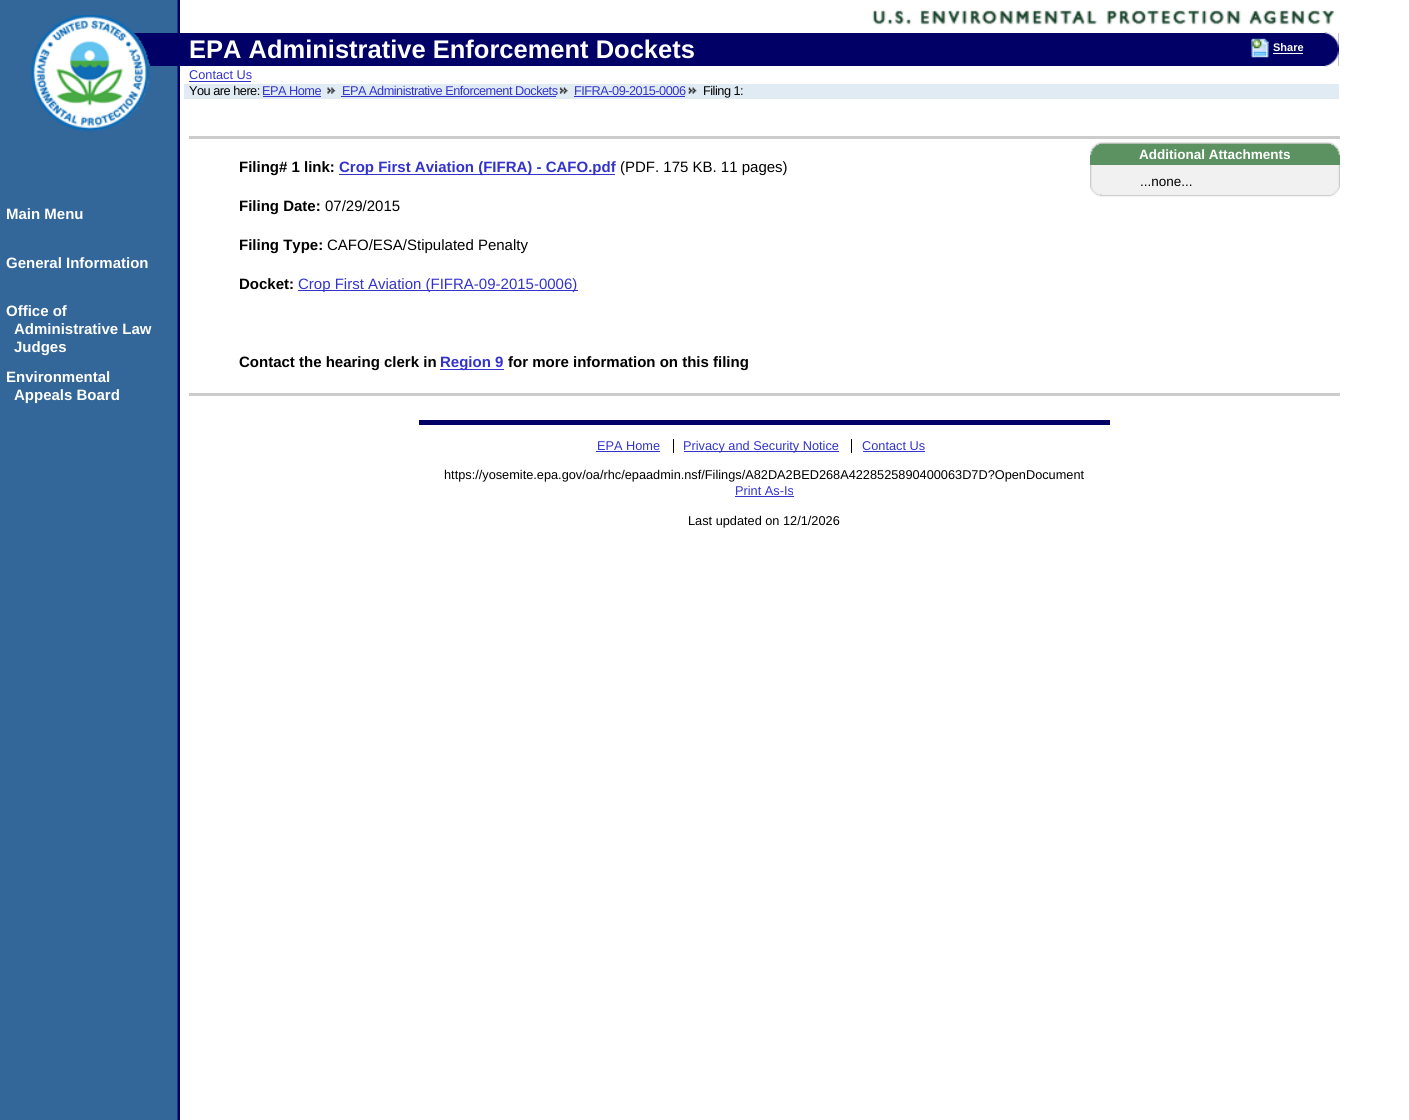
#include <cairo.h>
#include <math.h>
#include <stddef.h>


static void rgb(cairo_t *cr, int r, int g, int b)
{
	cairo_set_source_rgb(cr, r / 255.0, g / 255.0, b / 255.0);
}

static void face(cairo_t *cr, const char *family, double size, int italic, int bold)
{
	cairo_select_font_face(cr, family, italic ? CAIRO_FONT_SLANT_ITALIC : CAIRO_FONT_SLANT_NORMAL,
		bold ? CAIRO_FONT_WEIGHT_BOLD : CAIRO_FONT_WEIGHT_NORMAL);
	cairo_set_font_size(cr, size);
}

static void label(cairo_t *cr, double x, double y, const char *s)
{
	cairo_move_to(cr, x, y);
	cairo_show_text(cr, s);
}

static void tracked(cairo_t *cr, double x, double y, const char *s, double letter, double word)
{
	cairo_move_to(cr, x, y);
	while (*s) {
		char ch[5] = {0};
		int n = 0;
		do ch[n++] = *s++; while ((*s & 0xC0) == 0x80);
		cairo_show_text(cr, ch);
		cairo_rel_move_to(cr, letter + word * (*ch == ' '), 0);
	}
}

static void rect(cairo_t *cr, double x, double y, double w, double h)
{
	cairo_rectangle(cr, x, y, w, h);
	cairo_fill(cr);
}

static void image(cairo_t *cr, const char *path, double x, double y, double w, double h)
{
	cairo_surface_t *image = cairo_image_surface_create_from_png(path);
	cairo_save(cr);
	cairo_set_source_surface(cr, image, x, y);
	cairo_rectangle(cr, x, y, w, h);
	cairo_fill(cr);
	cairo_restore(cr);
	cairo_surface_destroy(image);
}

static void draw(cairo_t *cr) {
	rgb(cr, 255, 255, 255);
	cairo_paint(cr);
	image(cr, "image0.png", 0, 0, 180, 1120);
	image(cr, "image1.png", 872, 10, 463, 19);
	rgb(cr, 0, 0, 102);
	rect(cr, 133, 33, 1206, 33);
	image(cr, "image2.png", 31, 15, 120, 117);
	image(cr, "image3.png", 1325, 32, 14, 16);
	image(cr, "image4.png", 1325, 51, 14, 16);
	face(cr, "Liberation Sans", 25.5, 0, 1);
	rgb(cr, 255, 255, 255);
	label(cr, 189, 58, "EPA Administrative Enforcement Dockets");
	face(cr, "Liberation Sans", 12.75, 0, 0);
	rgb(cr, 51, 51, 204);
	label(cr, 189, 79, "Contact Us");
	rect(cr, 189, 81, 62, 1);
	rgb(cr, 225, 235, 244);
	rect(cr, 184, 84, 1155, 15);
	rgb(cr, 0, 0, 0);
	tracked(cr, 189, 95, "You are here:", -0.5, 0);
	rgb(cr, 51, 51, 204);
	tracked(cr, 262, 95, "EPA Home", -0.5, 0);
	rect(cr, 263, 96, 58, 1);
	image(cr, "image5.png", 327, 87, 9, 7);
	tracked(cr, 342, 95, "EPA Administrative Enforcement Dockets", -0.5, 0);
	rect(cr, 341, 96, 215, 1);
	image(cr, "image6.png", 559, 87, 9, 7);
	tracked(cr, 574, 95, "FIFRA-09-2015-0006", -0.5, 0);
	rect(cr, 574, 96, 111, 1);
	image(cr, "image7.png", 688, 87, 9, 7);
	rgb(cr, 0, 0, 0);
	tracked(cr, 703, 95, "Filing 1:", -0.5, 0);
	image(cr, "image8.png", 1251, 38, 18, 20);
	face(cr, "Liberation Sans", 11, 0, 1);
	rgb(cr, 255, 255, 255);
	label(cr, 1273, 51, "Share");
	rect(cr, 1273, 53, 30, 1);
	rgb(cr, 0, 0, 102);
	rect(cr, 419, 420, 691, 5);
	face(cr, "Liberation Sans", 12.75, 0, 0);
	rgb(cr, 51, 51, 204);
	label(cr, 597, 450, "EPA Home");
	rgb(cr, 0, 0, 0);
	rect(cr, 673, 439, 1, 14);
	rgb(cr, 51, 51, 204);
	rect(cr, 596, 451, 64, 1);
	rect(cr, 684, 451, 155, 1);
	label(cr, 683, 450, "Privacy and Security Notice");
	rgb(cr, 0, 0, 0);
	rect(cr, 851, 439, 1, 14);
	rgb(cr, 51, 51, 204);
	label(cr, 862, 450, "Contact Us");
	rect(cr, 863, 451, 62, 1);
	rgb(cr, 0, 0, 0);
	label(cr, 444, 479, "https://yosemite.epa.gov/oa/rhc/epaadmin.nsf/Filings/A82DA2BED268A4228525890400063D7D?OpenDocument");
	rgb(cr, 51, 51, 204);
	label(cr, 735, 495, "Print As-Is");
	rect(cr, 735, 496, 59, 1);
	rgb(cr, 0, 0, 0);
	label(cr, 688, 525, "Last updated on 12/1/2026");
	face(cr, "Liberation Sans", 15, 0, 1);
	rgb(cr, 255, 255, 255);
	label(cr, 6, 219, "Main Menu");
	label(cr, 6, 268, "General Information");
	label(cr, 6, 316, "Office of");
	label(cr, 14, 334, "Administrative Law");
	label(cr, 14, 352, "Judges");
	label(cr, 6, 382, "Environmental");
	label(cr, 14, 400, "Appeals Board");
	rgb(cr, 204, 204, 204);
	rect(cr, 189, 136, 1151, 3);
	rgb(cr, 0, 0, 0);
	label(cr, 239, 172, "Filing# 1 link:");
	rgb(cr, 51, 51, 204);
	rect(cr, 339, 174, 276, 1);
	label(cr, 339, 172, "Crop First Aviation (FIFRA) - CAFO.pdf");
	face(cr, "Liberation Sans", 15, 0, 0);
	rgb(cr, 0, 0, 0);
	label(cr, 620, 172, "(PDF. 175 KB. 11 pages)");
	face(cr, "Liberation Sans", 15, 0, 1);
	label(cr, 239, 211, "Filing Date:");
	face(cr, "Liberation Sans", 15, 0, 0);
	label(cr, 325, 211, "07/29/2015");
	face(cr, "Liberation Sans", 15, 0, 1);
	label(cr, 239, 250, "Filing Type:");
	face(cr, "Liberation Sans", 15, 0, 0);
	label(cr, 327, 250, "CAFO/ESA/Stipulated Penalty");
	face(cr, "Liberation Sans", 15, 0, 1);
	label(cr, 239, 289, "Docket:");
	rgb(cr, 51, 51, 204);
	rect(cr, 298, 290, 280, 1);
	face(cr, "Liberation Sans", 15, 0, 0);
	label(cr, 298, 289, "Crop First Aviation (FIFRA-09-2015-0006)");
	face(cr, "Liberation Sans", 15, 0, 1);
	rgb(cr, 0, 0, 0);
	label(cr, 239, 367, "Contact the hearing clerk in");
	rgb(cr, 51, 51, 204);
	rect(cr, 440, 369, 64, 1);
	label(cr, 440, 367, "Region 9");
	rgb(cr, 0, 0, 0);
	label(cr, 508, 367, "for more information on this filing");
	rgb(cr, 241, 241, 241);
	rect(cr, 1091, 165, 248, 31);
	image(cr, "image9.png", 1090, 142, 250, 55);
	rgb(cr, 92, 146, 97);
	rect(cr, 1090, 143, 250, 22);
	image(cr, "image10.png", 1090, 142, 250, 13);
	face(cr, "Liberation Sans", 13.5, 0, 1);
	rgb(cr, 255, 255, 255);
	label(cr, 1139, 159, "Additional Attachments");
	face(cr, "Liberation Sans", 13.5, 0, 0);
	rgb(cr, 0, 0, 0);
	label(cr, 1140, 186, "...none...");
	rgb(cr, 204, 204, 204);
	rect(cr, 189, 393, 1151, 3);
}

int main(void) {
	cairo_surface_t *surface = cairo_image_surface_create(CAIRO_FORMAT_RGB24, 1409, 1120);
	cairo_t *cr = cairo_create(surface);
	cairo_font_options_t *options = cairo_font_options_create();
	cairo_font_options_set_hint_metrics(options, CAIRO_HINT_METRICS_OFF);
	cairo_font_options_set_hint_style(options, CAIRO_HINT_STYLE_NONE);
	cairo_set_font_options(cr, options);
	cairo_set_miter_limit(cr, 4);
	draw(cr);
	cairo_surface_write_to_png(surface, "render.png");
	cairo_font_options_destroy(options);
	cairo_destroy(cr);
	cairo_surface_destroy(surface);
	return 0;
}
